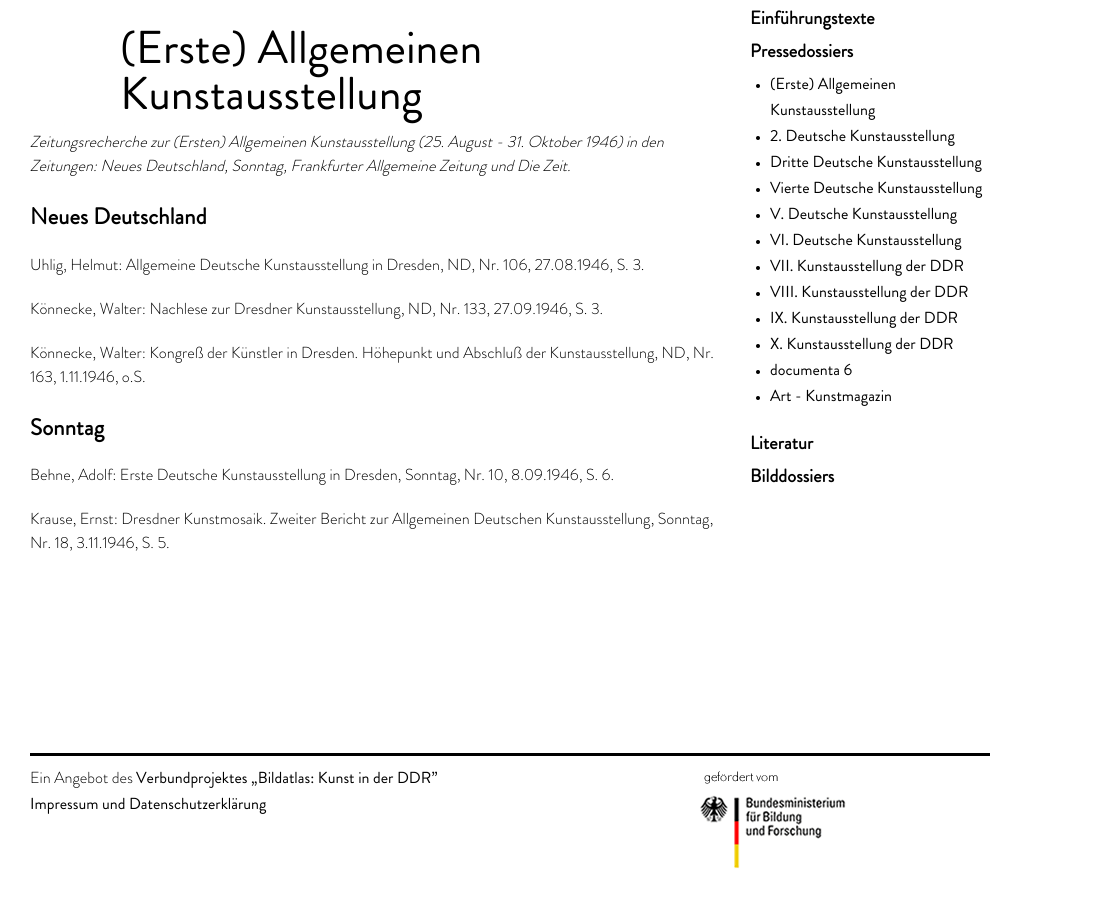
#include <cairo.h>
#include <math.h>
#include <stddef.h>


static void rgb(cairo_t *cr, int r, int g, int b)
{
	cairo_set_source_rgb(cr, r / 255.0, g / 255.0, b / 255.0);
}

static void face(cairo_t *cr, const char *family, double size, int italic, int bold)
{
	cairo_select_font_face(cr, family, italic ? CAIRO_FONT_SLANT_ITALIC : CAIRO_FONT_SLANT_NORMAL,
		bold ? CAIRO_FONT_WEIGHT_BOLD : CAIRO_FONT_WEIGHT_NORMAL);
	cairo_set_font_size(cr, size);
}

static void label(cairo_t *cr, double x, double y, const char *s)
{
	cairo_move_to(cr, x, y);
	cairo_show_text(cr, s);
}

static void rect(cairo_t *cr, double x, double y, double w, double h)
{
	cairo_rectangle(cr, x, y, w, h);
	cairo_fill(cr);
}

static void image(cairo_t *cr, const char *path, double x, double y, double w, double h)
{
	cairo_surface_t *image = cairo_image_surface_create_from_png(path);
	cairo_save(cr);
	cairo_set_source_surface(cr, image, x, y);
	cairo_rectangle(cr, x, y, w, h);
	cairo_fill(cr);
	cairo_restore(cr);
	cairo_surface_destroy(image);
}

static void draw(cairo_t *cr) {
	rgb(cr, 255, 255, 255);
	cairo_paint(cr);
	face(cr, "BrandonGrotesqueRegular", 46, 0, 0);
	rgb(cr, 0, 0, 0);
	label(cr, 120, 63, "(Erste) Allgemeinen");
	label(cr, 120, 109, "Kunstausstellung");
	face(cr, "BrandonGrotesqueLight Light", 16, 1, 0);
	label(cr, 30, 147, "Zeitungsrecherche zur (Ersten) Allgemeinen Kunstausstellung (25. August - 31. Oktober 1946) in den");
	label(cr, 30, 171, "Zeitungen: Neues Deutschland, Sonntag, Frankfurter Allgemeine Zeitung und Die Zeit.");
	face(cr, "BrandonGrotesqueRegular", 23, 0, 1);
	label(cr, 30, 224, "Neues Deutschland");
	face(cr, "BrandonGrotesqueLight Light", 16, 0, 0);
	label(cr, 30, 270, "Uhlig, Helmut: Allgemeine Deutsche Kunstausstellung in Dresden, ND, Nr. 106, 27.08.1946, S. 3.");
	label(cr, 30, 314, "Könnecke, Walter: Nachlese zur Dresdner Kunstausstellung, ND, Nr. 133, 27.09.1946, S. 3.");
	label(cr, 30, 358, "Könnecke, Walter: Kongreß der Künstler in Dresden. Höhepunkt und Abschluß der Kunstausstellung, ND, Nr.");
	label(cr, 30, 382, "163, 1.11.1946, o.S.");
	face(cr, "BrandonGrotesqueRegular", 23, 0, 1);
	label(cr, 30, 435, "Sonntag");
	face(cr, "BrandonGrotesqueLight Light", 16, 0, 0);
	label(cr, 30, 480, "Behne, Adolf: Erste Deutsche Kunstausstellung in Dresden, Sonntag, Nr. 10, 8.09.1946, S. 6.");
	label(cr, 30, 524, "Krause, Ernst: Dresdner Kunstmosaik. Zweiter Bericht zur Allgemeinen Deutschen Kunstausstellung, Sonntag,");
	label(cr, 30, 548, "Nr. 18, 3.11.1946, S. 5.");
	face(cr, "BrandonGrotesqueRegular", 18.5, 0, 1);
	label(cr, 750, 24, "Einführungstexte");
	label(cr, 750, 57, "Pressedossiers");
	cairo_new_path(cr);
	cairo_arc(cr, 758, 86, 2, 0, 2 * M_PI);
	cairo_fill(cr);
	face(cr, "BrandonGrotesqueRegular", 16, 0, 0);
	label(cr, 770, 89, "(Erste) Allgemeinen");
	label(cr, 770, 115, "Kunstausstellung");
	cairo_new_path(cr);
	cairo_arc(cr, 758, 138, 2, 0, 2 * M_PI);
	cairo_fill(cr);
	label(cr, 770, 141, "2. Deutsche Kunstausstellung");
	cairo_new_path(cr);
	cairo_arc(cr, 758, 164, 2, 0, 2 * M_PI);
	cairo_fill(cr);
	label(cr, 770, 167, "Dritte Deutsche Kunstausstellung");
	cairo_new_path(cr);
	cairo_arc(cr, 758, 190, 2, 0, 2 * M_PI);
	cairo_fill(cr);
	label(cr, 770, 193, "Vierte Deutsche Kunstausstellung");
	cairo_new_path(cr);
	cairo_arc(cr, 758, 216, 2, 0, 2 * M_PI);
	cairo_fill(cr);
	label(cr, 770, 219, "V. Deutsche Kunstausstellung");
	cairo_new_path(cr);
	cairo_arc(cr, 758, 242, 2, 0, 2 * M_PI);
	cairo_fill(cr);
	label(cr, 770, 245, "VI. Deutsche Kunstausstellung");
	cairo_new_path(cr);
	cairo_arc(cr, 758, 268, 2, 0, 2 * M_PI);
	cairo_fill(cr);
	label(cr, 770, 271, "VII. Kunstausstellung der DDR");
	cairo_new_path(cr);
	cairo_arc(cr, 758, 294, 2, 0, 2 * M_PI);
	cairo_fill(cr);
	label(cr, 770, 297, "VIII. Kunstausstellung der DDR");
	cairo_new_path(cr);
	cairo_arc(cr, 758, 320, 2, 0, 2 * M_PI);
	cairo_fill(cr);
	label(cr, 770, 323, "IX. Kunstausstellung der DDR");
	cairo_new_path(cr);
	cairo_arc(cr, 758, 346, 2, 0, 2 * M_PI);
	cairo_fill(cr);
	label(cr, 770, 349, "X. Kunstausstellung der DDR");
	cairo_new_path(cr);
	cairo_arc(cr, 758, 372, 2, 0, 2 * M_PI);
	cairo_fill(cr);
	label(cr, 770, 375, "documenta 6");
	cairo_new_path(cr);
	cairo_arc(cr, 758, 398, 2, 0, 2 * M_PI);
	cairo_fill(cr);
	label(cr, 770, 401, "Art - Kunstmagazin");
	face(cr, "BrandonGrotesqueRegular", 18.5, 0, 1);
	label(cr, 750, 449, "Literatur");
	label(cr, 750, 482, "Bilddossiers");
	rect(cr, 30, 753, 960, 3);
	face(cr, "BrandonGrotesqueLight Light", 16, 0, 0);
	label(cr, 30, 783, "Ein Angebot des");
	face(cr, "BrandonGrotesqueRegular", 16, 0, 0);
	label(cr, 136, 783, "Verbundprojektes „Bildatlas: Kunst in der DDR”");
	label(cr, 30, 809, "Impressum und Datenschutzerklärung");
	image(cr, "image0.png", 700, 771, 146, 98);
}

int main(void) {
	cairo_surface_t *surface = cairo_image_surface_create(CAIRO_FORMAT_RGB24, 1116, 905);
	cairo_t *cr = cairo_create(surface);
	cairo_font_options_t *options = cairo_font_options_create();
	cairo_font_options_set_hint_metrics(options, CAIRO_HINT_METRICS_OFF);
	cairo_font_options_set_hint_style(options, CAIRO_HINT_STYLE_NONE);
	cairo_set_font_options(cr, options);
	cairo_set_miter_limit(cr, 4);
	draw(cr);
	cairo_surface_write_to_png(surface, "render.png");
	cairo_font_options_destroy(options);
	cairo_destroy(cr);
	cairo_surface_destroy(surface);
	return 0;
}
